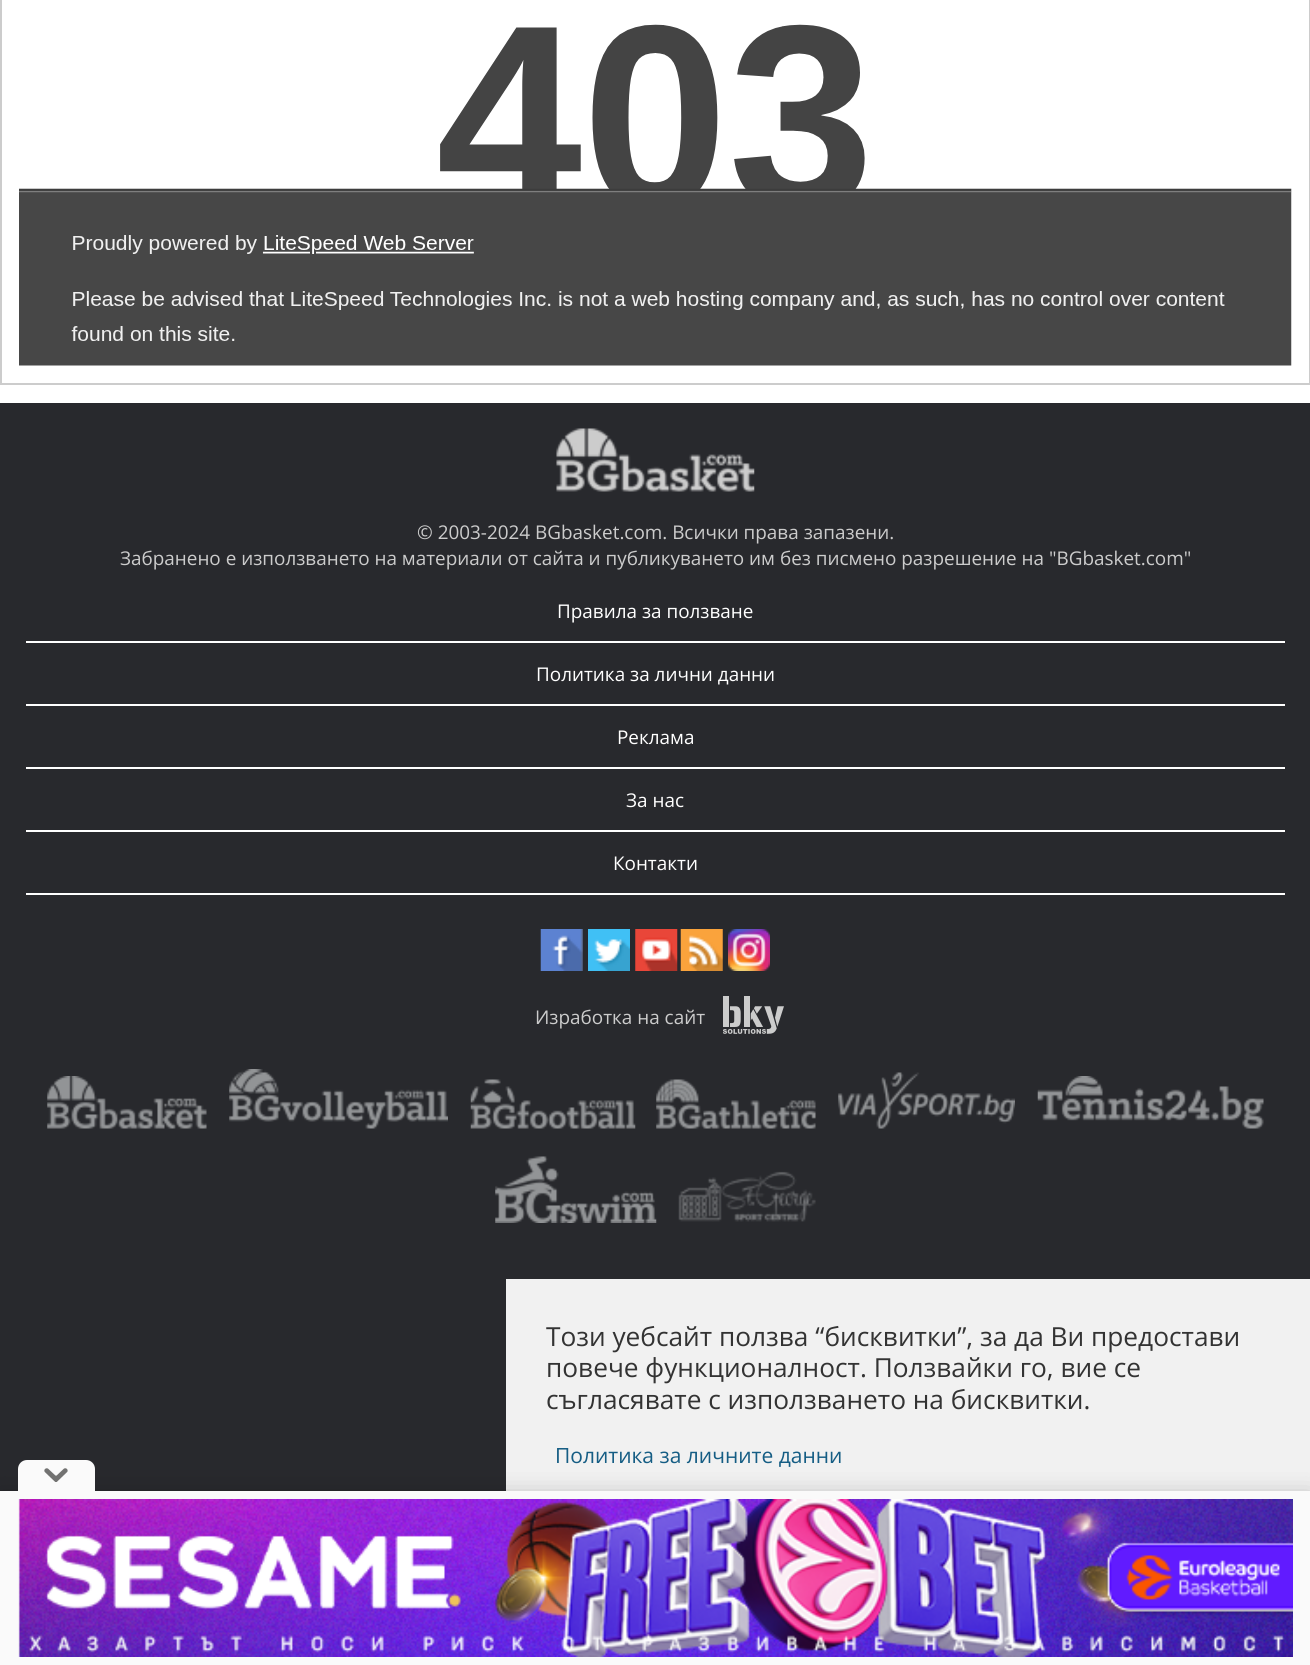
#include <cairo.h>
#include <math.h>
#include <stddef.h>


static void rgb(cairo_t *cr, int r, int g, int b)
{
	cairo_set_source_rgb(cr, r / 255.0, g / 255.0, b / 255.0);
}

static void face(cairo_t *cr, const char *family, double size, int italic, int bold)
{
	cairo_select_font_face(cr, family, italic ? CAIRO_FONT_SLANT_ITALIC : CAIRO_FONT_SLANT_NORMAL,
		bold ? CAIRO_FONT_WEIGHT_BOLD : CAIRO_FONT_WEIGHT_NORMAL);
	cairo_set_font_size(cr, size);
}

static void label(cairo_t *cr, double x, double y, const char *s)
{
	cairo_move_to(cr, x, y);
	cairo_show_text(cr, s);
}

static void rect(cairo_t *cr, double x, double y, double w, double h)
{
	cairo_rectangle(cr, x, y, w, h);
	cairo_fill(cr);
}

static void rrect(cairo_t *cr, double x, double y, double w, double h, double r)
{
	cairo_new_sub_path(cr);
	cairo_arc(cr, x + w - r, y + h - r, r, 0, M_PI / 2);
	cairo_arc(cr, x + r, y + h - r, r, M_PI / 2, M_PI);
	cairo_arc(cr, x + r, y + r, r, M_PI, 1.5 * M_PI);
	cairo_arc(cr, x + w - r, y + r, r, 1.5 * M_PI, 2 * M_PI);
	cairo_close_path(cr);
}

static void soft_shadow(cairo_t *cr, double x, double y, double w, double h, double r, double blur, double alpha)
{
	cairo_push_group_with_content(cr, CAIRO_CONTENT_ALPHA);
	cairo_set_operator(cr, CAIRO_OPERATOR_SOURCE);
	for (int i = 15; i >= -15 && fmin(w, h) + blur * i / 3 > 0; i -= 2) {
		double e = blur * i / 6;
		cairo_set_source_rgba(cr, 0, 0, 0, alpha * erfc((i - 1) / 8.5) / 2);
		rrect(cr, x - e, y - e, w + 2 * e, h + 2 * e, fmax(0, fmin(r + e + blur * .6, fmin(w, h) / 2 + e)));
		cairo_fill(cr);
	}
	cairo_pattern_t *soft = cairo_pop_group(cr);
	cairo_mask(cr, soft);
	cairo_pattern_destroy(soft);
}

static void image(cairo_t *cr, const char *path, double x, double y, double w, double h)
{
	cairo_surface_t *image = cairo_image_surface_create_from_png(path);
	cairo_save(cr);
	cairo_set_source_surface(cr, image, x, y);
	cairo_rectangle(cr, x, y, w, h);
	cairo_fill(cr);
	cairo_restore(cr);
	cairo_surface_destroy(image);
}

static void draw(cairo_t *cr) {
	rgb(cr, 255, 255, 255);
	cairo_paint(cr);
	cairo_rectangle(cr, 1, -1, 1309, 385);
	rgb(cr, 204, 204, 204);
	cairo_stroke(cr);
	image(cr, "image0.png", 19, 24, 1273, 342);
	rgb(cr, 40, 41, 45);
	rect(cr, 0, 403, 1310, 1088);
	image(cr, "image1.png", 556, 428, 199, 64);
	face(cr, "Open Sans", 18.9, 0, 0);
	rgb(cr, 204, 204, 204);
	label(cr, 417, 539, "© 2003-2024 BGbasket.com. Всички права запазени.");
	label(cr, 120, 565, "Забранено е използването на материали от сайта и публикуването им без писмено разрешение на \"BGbasket.com\"");
	rgb(cr, 255, 255, 255);
	rect(cr, 26, 641, 1259, 2);
	label(cr, 557, 618, "Правила за ползване");
	rect(cr, 26, 704, 1259, 2);
	label(cr, 536, 681, "Политика за лични данни");
	rect(cr, 26, 767, 1259, 2);
	label(cr, 617, 744, "Реклама");
	rect(cr, 26, 830, 1259, 2);
	label(cr, 626, 807, "За нас");
	rect(cr, 26, 893, 1259, 2);
	label(cr, 613, 870, "Контакти");
	image(cr, "image2.png", 540, 929, 43, 42);
	image(cr, "image3.png", 588, 929, 42, 42);
	image(cr, "image4.png", 635, 929, 43, 42);
	image(cr, "image5.png", 680, 929, 43, 42);
	image(cr, "image6.png", 728, 929, 42, 42);
	image(cr, "image7.png", 723, 996, 61, 38);
	rgb(cr, 204, 204, 204);
	label(cr, 535, 1024, "Изработка на сайт");
	image(cr, "image8.png", 47, 1076, 160, 53);
	image(cr, "image9.png", 229, 1069, 219, 60);
	image(cr, "image10.png", 470, 1079, 166, 50);
	image(cr, "image11.png", 656, 1079, 160, 50);
	image(cr, "image12.png", 838, 1072, 177, 57);
	image(cr, "image13.png", 1037, 1076, 227, 53);
	image(cr, "image14.png", 495, 1156, 162, 67);
	image(cr, "image15.png", 678, 1171, 138, 51);
	rgb(cr, 241, 241, 241);
	rect(cr, 506, 1279, 804, 212);
	face(cr, "Open Sans", 26.25, 0, 0);
	rgb(cr, 51, 51, 51);
	label(cr, 546, 1346, "Този уебсайт ползва “бисквитки”, за да Ви предостави");
	label(cr, 546, 1377, "повече функционалност. Ползвайки го, вие се");
	label(cr, 546, 1409, "съгласявате с използването на бисквитки.");
	face(cr, "Open Sans", 21, 0, 0);
	rgb(cr, 21, 93, 132);
	label(cr, 555, 1463, "Политика за личните данни");
	rgb(cr, 0, 0, 0);
	soft_shadow(cr, 0, 1500, 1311, 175, 0, 13, 0.35);
	rgb(cr, 250, 250, 250);
	rect(cr, 0, 1491, 1310, 174);
	cairo_new_path(cr);
	cairo_move_to(cr, 27, 1460);
	cairo_line_to(cr, 86, 1460);
	cairo_curve_to(cr, 91, 1460, 95, 1464, 95, 1469);
	cairo_line_to(cr, 95, 1491);
	cairo_line_to(cr, 18, 1491);
	cairo_line_to(cr, 18, 1469);
	cairo_curve_to(cr, 18, 1464, 22, 1460, 27, 1460);
	cairo_close_path(cr);
	cairo_fill(cr);
	image(cr, "image16.png", 44, 1468, 24, 14);
	image(cr, "image17.png", 18, 1499, 1275, 158);
}

int main(void) {
	cairo_surface_t *surface = cairo_image_surface_create(CAIRO_FORMAT_RGB24, 1310, 1665);
	cairo_t *cr = cairo_create(surface);
	cairo_font_options_t *options = cairo_font_options_create();
	cairo_font_options_set_hint_metrics(options, CAIRO_HINT_METRICS_OFF);
	cairo_font_options_set_hint_style(options, CAIRO_HINT_STYLE_NONE);
	cairo_set_font_options(cr, options);
	cairo_set_miter_limit(cr, 4);
	draw(cr);
	cairo_surface_write_to_png(surface, "render.png");
	cairo_font_options_destroy(options);
	cairo_destroy(cr);
	cairo_surface_destroy(surface);
	return 0;
}
